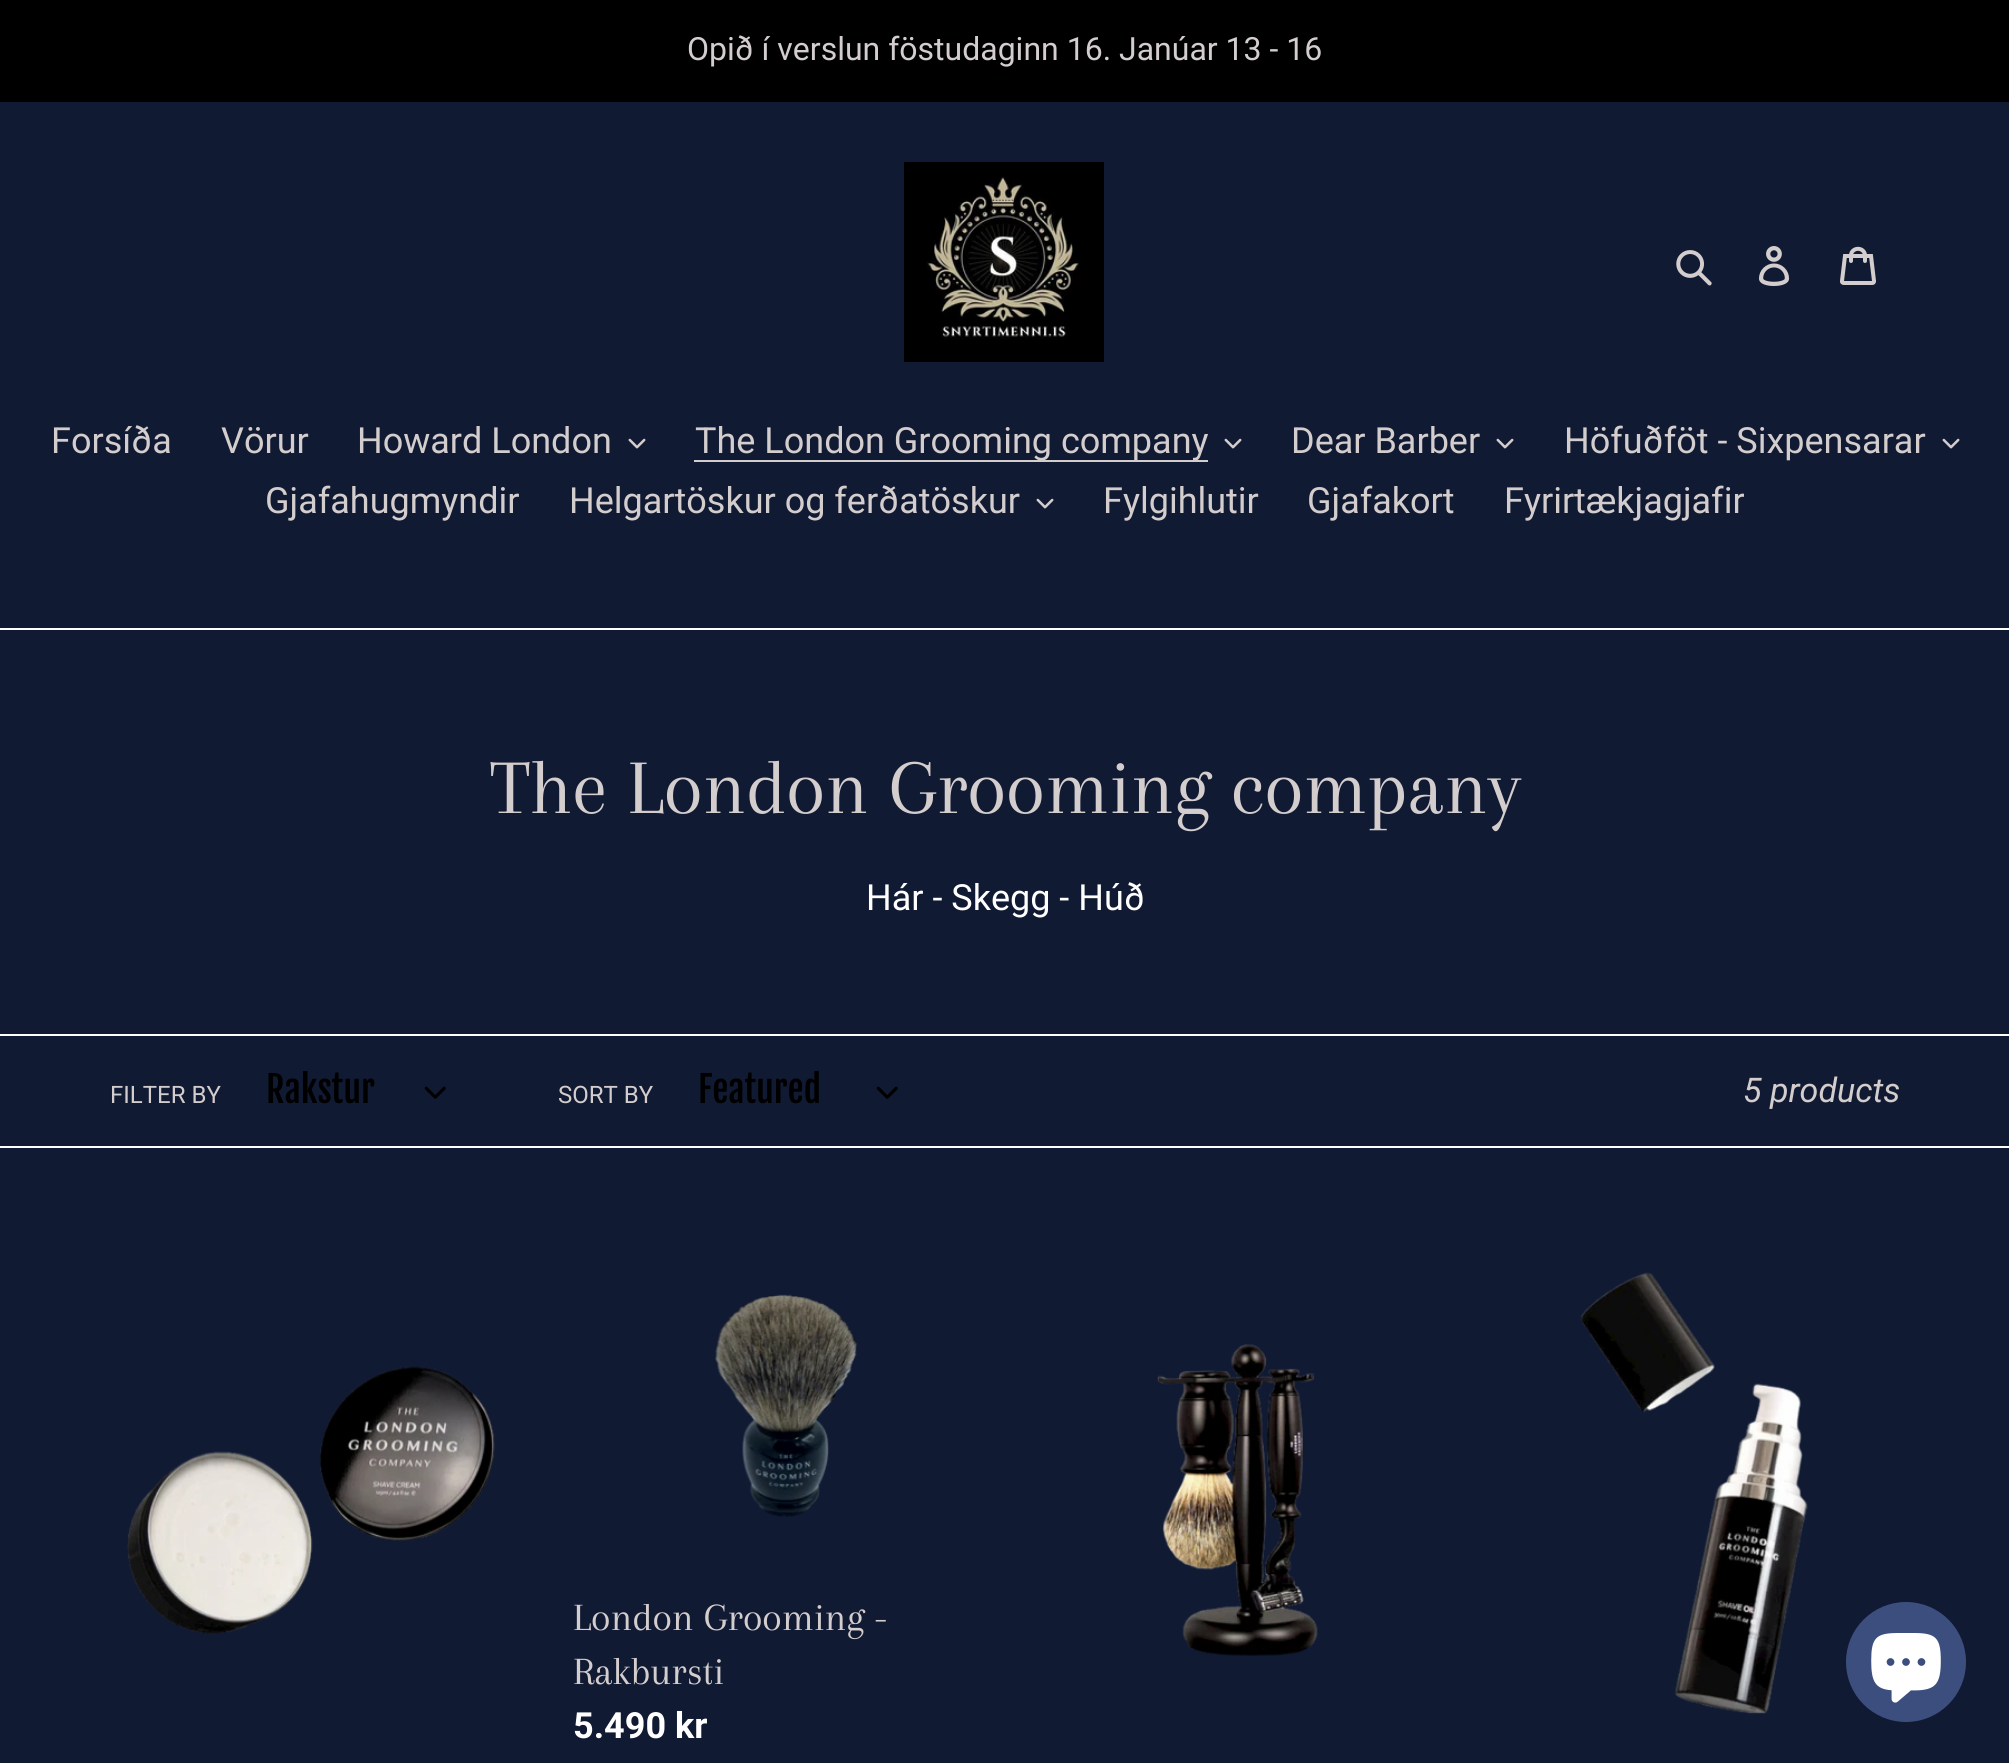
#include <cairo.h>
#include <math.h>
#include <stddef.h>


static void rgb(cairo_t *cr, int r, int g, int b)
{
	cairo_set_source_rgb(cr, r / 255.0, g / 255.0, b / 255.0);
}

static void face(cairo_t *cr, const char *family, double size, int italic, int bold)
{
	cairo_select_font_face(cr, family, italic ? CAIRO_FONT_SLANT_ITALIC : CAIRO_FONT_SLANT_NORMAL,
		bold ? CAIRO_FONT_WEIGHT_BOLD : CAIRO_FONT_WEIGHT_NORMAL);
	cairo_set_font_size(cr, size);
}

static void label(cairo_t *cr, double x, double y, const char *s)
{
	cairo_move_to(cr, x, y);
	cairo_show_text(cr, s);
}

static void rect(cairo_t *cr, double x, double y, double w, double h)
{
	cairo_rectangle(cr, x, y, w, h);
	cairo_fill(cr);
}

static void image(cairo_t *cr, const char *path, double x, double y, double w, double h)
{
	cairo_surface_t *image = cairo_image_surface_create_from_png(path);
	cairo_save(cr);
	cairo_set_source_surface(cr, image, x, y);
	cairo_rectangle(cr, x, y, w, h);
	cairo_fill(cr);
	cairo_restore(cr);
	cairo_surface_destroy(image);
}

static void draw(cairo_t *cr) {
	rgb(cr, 17, 26, 51);
	cairo_paint(cr);
	rgb(cr, 0, 0, 0);
	rect(cr, 0, 0, 2009, 102);
	face(cr, "Roboto", 32, 0, 0);
	rgb(cr, 212, 205, 205);
	label(cr, 687, 60, "Opið í verslun föstudaginn 16. Janúar 13 - 16");
	image(cr, "image0.png", 904, 162, 200, 200);
	image(cr, "image1.png", 1676, 250, 36, 36);
	image(cr, "image2.png", 1759, 246, 31, 40);
	image(cr, "image3.png", 1840, 246, 36, 39);
	rgb(cr, 255, 255, 255);
	rect(cr, 0, 628, 2009, 2);
	face(cr, "Roboto", 36, 0, 0);
	rgb(cr, 212, 205, 205);
	label(cr, 51, 453, "Forsíða");
	label(cr, 221, 453, "Vörur");
	label(cr, 357, 453, "Howard London");
	image(cr, "image4.png", 628, 438, 18, 11);
	rect(cr, 694, 460, 514, 2);
	label(cr, 695, 453, "The London Grooming company");
	image(cr, "image4.png", 1224, 438, 18, 11);
	label(cr, 1291, 453, "Dear Barber");
	image(cr, "image4.png", 1496, 438, 18, 11);
	label(cr, 1564, 453, "Höfuðföt - Sixpensarar");
	image(cr, "image4.png", 1942, 438, 18, 11);
	label(cr, 265, 513, "Gjafahugmyndir");
	label(cr, 569, 513, "Helgartöskur og ferðatöskur");
	image(cr, "image4.png", 1036, 498, 18, 11);
	label(cr, 1103, 513, "Fylgihlutir");
	label(cr, 1307, 513, "Gjafakort");
	label(cr, 1504, 513, "Fyrirtækjagjafir");
	face(cr, "Arapey", 80, 0, 0);
	label(cr, 490, 813, "The London Grooming company");
	face(cr, "Roboto", 36, 0, 0);
	rgb(cr, 255, 255, 255);
	label(cr, 866, 910, "Hár - Skegg - Húð");
	rect(cr, 0, 1034, 2009, 2);
	rect(cr, 0, 1146, 2009, 2);
	face(cr, "Roboto", 24, 0, 0);
	rgb(cr, 212, 205, 205);
	label(cr, 110, 1103, "FILTER BY");
	face(cr, "Fjalla One", 36, 0, 0);
	rgb(cr, 0, 0, 0);
	label(cr, 266, 1103, "Rakstur");
	image(cr, "image5.png", 424, 1086, 22, 13);
	face(cr, "Roboto", 24, 0, 0);
	rgb(cr, 212, 205, 205);
	label(cr, 558, 1103, "SORT BY");
	face(cr, "Fjalla One", 36, 0, 0);
	rgb(cr, 0, 0, 0);
	label(cr, 698, 1103, "Featured");
	image(cr, "image5.png", 876, 1086, 22, 13);
	face(cr, "Roboto", 34, 1, 0);
	rgb(cr, 212, 205, 205);
	label(cr, 1743, 1102, "5 products");
	image(cr, "image6.png", 127, 1366, 368, 268);
	image(cr, "image7.png", 1157, 1344, 161, 312);
	image(cr, "image8.png", 1580, 1272, 228, 442);
	image(cr, "image9.png", 715, 1294, 143, 223);
	face(cr, "Arapey", 40, 0, 0);
	label(cr, 573, 1630, "London Grooming -");
	label(cr, 573, 1684, "Rakbursti");
	face(cr, "Roboto", 36, 0, 1);
	rgb(cr, 255, 255, 255);
	label(cr, 573, 1738, "5.490 kr");
	rgb(cr, 59, 78, 126);
	cairo_new_path(cr);
	cairo_arc(cr, 1906, 1662, 60, 0, 2 * M_PI);
	cairo_fill(cr);
	image(cr, "image10.png", 1871, 1633, 70, 70);
}

int main(void) {
	cairo_surface_t *surface = cairo_image_surface_create(CAIRO_FORMAT_RGB24, 2009, 1763);
	cairo_t *cr = cairo_create(surface);
	cairo_font_options_t *options = cairo_font_options_create();
	cairo_font_options_set_hint_metrics(options, CAIRO_HINT_METRICS_OFF);
	cairo_font_options_set_hint_style(options, CAIRO_HINT_STYLE_NONE);
	cairo_set_font_options(cr, options);
	cairo_set_miter_limit(cr, 4);
	draw(cr);
	cairo_surface_write_to_png(surface, "render.png");
	cairo_font_options_destroy(options);
	cairo_destroy(cr);
	cairo_surface_destroy(surface);
	return 0;
}
